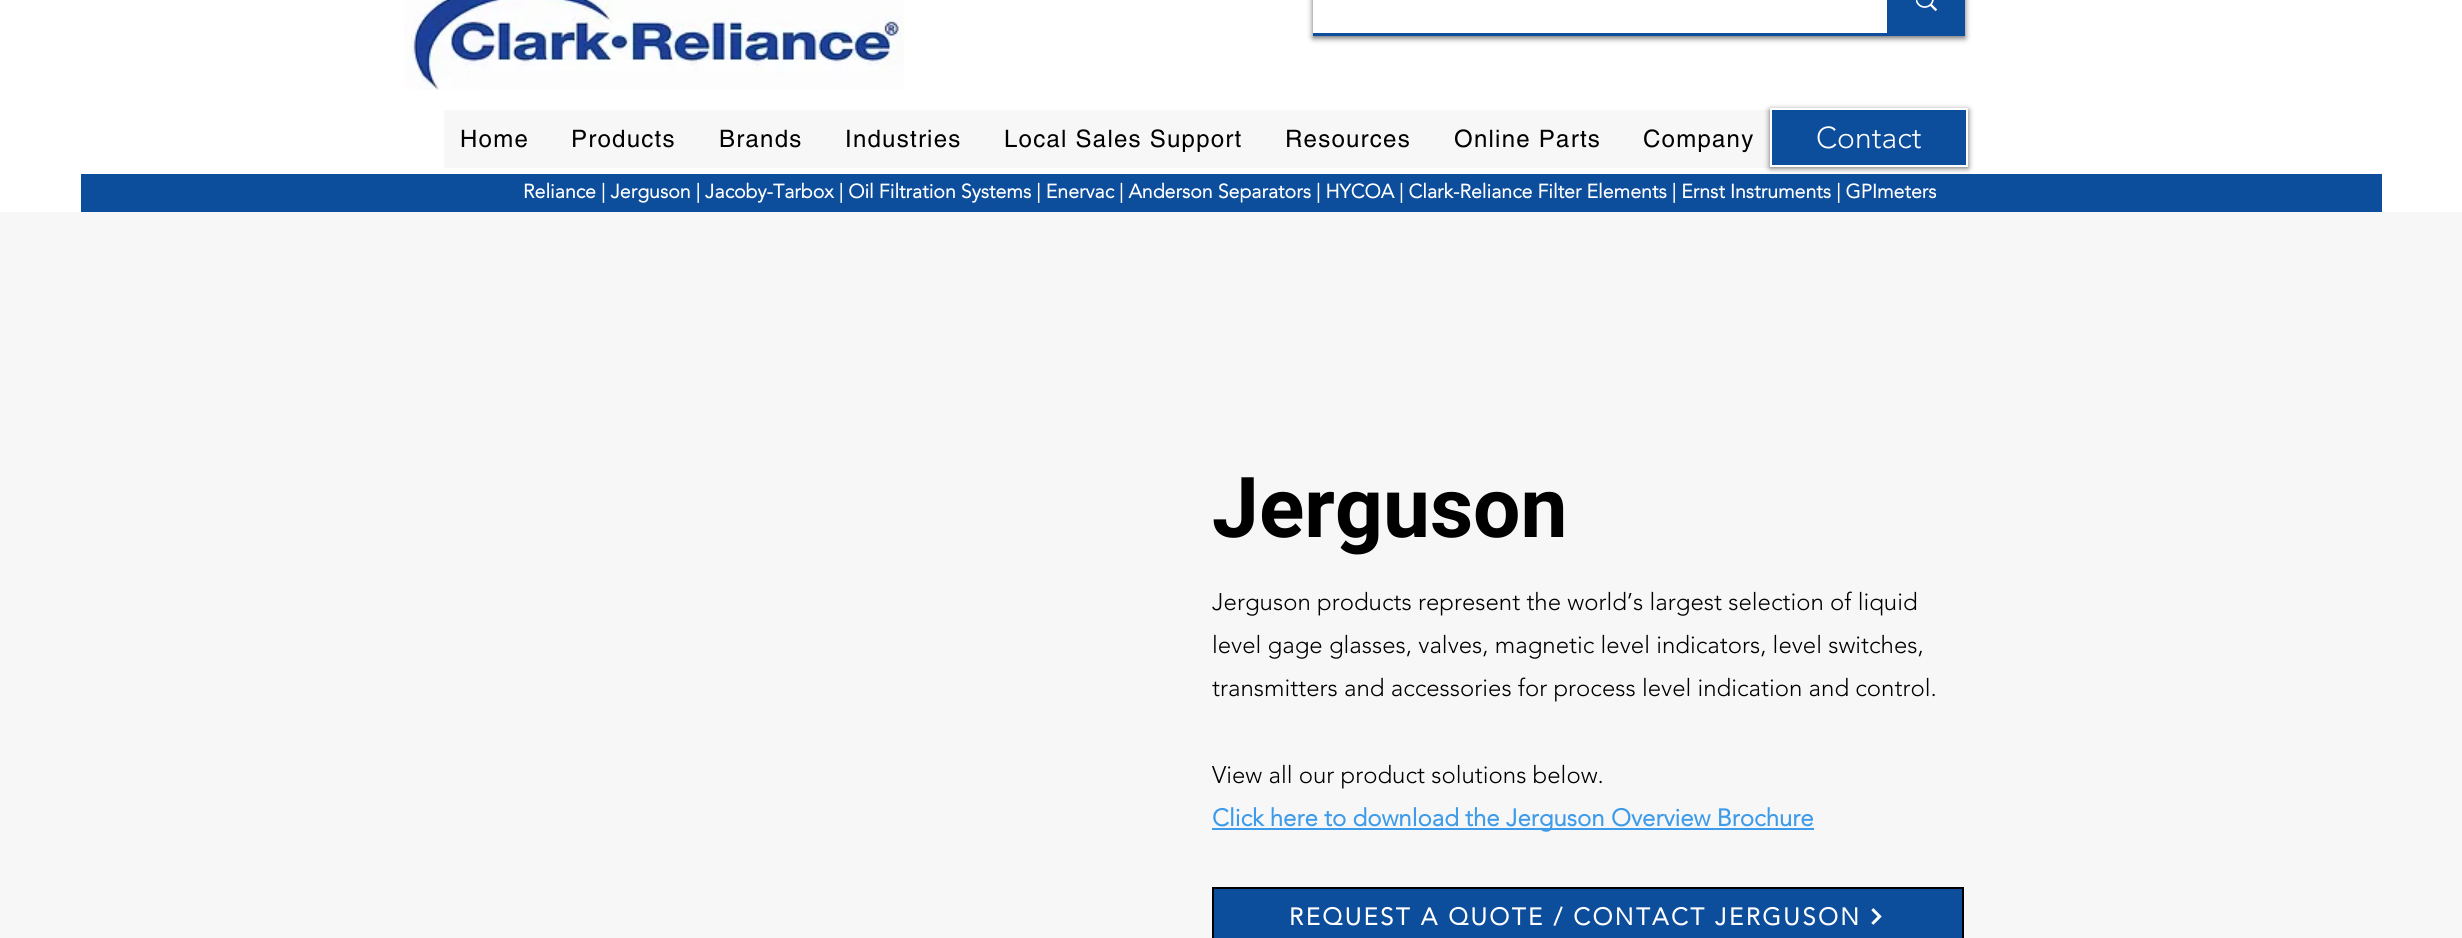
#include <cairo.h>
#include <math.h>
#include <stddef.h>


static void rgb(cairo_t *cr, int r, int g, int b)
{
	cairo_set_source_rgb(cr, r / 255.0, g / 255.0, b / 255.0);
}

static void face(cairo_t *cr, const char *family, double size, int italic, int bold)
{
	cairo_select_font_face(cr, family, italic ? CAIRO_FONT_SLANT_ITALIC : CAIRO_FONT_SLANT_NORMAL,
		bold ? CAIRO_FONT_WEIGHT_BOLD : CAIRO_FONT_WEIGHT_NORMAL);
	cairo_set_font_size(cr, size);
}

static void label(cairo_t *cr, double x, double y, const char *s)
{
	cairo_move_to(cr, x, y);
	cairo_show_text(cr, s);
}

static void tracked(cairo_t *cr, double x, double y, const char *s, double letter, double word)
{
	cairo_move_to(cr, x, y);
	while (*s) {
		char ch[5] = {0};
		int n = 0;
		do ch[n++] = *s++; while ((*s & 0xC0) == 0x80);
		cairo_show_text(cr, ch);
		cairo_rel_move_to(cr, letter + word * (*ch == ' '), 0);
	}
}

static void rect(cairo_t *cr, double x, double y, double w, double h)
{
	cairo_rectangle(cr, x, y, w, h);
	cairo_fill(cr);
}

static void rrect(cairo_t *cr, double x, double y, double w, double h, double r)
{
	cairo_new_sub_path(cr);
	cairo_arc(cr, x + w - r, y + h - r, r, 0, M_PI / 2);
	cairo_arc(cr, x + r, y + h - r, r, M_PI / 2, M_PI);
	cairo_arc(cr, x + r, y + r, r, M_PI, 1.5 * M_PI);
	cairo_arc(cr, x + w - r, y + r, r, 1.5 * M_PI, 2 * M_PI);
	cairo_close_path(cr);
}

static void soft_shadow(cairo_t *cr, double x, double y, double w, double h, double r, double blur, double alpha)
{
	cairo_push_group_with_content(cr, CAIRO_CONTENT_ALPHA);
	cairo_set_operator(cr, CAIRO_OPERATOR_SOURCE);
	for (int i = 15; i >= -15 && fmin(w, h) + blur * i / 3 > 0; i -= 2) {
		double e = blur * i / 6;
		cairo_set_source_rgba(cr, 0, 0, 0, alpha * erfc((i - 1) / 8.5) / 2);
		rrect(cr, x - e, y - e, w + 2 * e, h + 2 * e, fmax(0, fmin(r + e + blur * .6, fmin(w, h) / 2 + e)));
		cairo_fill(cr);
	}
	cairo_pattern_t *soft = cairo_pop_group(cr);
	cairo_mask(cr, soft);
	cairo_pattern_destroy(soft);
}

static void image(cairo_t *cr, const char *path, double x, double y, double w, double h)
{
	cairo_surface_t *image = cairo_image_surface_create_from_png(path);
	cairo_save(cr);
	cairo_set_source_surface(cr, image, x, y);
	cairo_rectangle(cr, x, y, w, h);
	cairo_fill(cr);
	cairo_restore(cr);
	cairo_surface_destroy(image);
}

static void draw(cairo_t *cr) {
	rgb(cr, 247, 247, 247);
	cairo_paint(cr);
	rgb(cr, 255, 255, 255);
	rect(cr, 0, 0, 2462, 212);
	image(cr, "image0.png", 404, 0, 500, 90);
	cairo_save(cr);
	cairo_set_fill_rule(cr, CAIRO_FILL_RULE_EVEN_ODD);
	cairo_new_path(cr);
	cairo_move_to(cr, 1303, 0);
	cairo_line_to(cr, 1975, 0);
	cairo_line_to(cr, 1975, 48);
	cairo_line_to(cr, 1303, 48);
	cairo_close_path(cr);
	cairo_move_to(cr, 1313, -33);
	cairo_line_to(cr, 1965, -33);
	cairo_line_to(cr, 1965, 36);
	cairo_line_to(cr, 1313, 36);
	cairo_close_path(cr);
	cairo_clip(cr);
	rgb(cr, 0, 0, 0);
	soft_shadow(cr, 1313, -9, 652, 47, 0, 3, 0.6);
	cairo_restore(cr);
	rgb(cr, 12, 77, 156);
	rect(cr, 1313, 33, 652, 3);
	rect(cr, 1887, 0, 78, 33);
	image(cr, "image1.png", 1916, 0, 21, 11);
	rgb(cr, 247, 247, 247);
	rect(cr, 444, 110, 1326, 58);
	face(cr, "helvetica", 24, 0, 0);
	rgb(cr, 0, 0, 0);
	tracked(cr, 460, 147, "Home", 1.25, 0);
	tracked(cr, 571, 147, "Products", 1.25, 0);
	tracked(cr, 719, 147, "Brands", 1.25, 0);
	tracked(cr, 845, 147, "Industries", 1.25, 0);
	tracked(cr, 1004, 147, "Local Sales Support", 1.25, 0);
	tracked(cr, 1285, 147, "Resources", 1.25, 0);
	tracked(cr, 1454, 147, "Online Parts", 1.25, 0);
	tracked(cr, 1643, 147, "Company", 1.25, 0);
	rgb(cr, 0, 0, 0);
	soft_shadow(cr, 1770, 110, 198, 58, 0, 3, 0.6);
	rgb(cr, 12, 77, 156);
	cairo_rectangle(cr, 1771, 109, 196, 57);
	cairo_fill_preserve(cr);
	rgb(cr, 255, 255, 255);
	cairo_stroke(cr);
	face(cr, "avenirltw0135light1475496 Light", 30, 0, 0);
	label(cr, 1816, 148, "Contact");
	rgb(cr, 12, 77, 156);
	rect(cr, 81, 174, 2301, 38);
	face(cr, "avenirltw0135light1475496", 19.5, 0, 1);
	rgb(cr, 255, 255, 255);
	label(cr, 523, 198, "Reliance | Jerguson | Jacoby-Tarbox | Oil Filtration Systems | Enervac | Anderson Separators | HYCOA | Clark-Reliance Filter Elements | Ernst Instruments | GPImeters");
	face(cr, "Roboto", 84, 0, 1);
	rgb(cr, 0, 0, 0);
	label(cr, 1212, 537, "Jerguson");
	face(cr, "avenirltw0135light1475496 Light", 24, 0, 0);
	label(cr, 1212, 610, "Jerguson products represent the world’s largest selection of liquid");
	label(cr, 1212, 653, "level gage glasses, valves, magnetic level indicators, level switches,");
	label(cr, 1212, 696, "transmitters and accessories for process level indication and control.");
	label(cr, 1212, 783, "View all our product solutions below.");
	rgb(cr, 61, 155, 233);
	rect(cr, 1212, 828, 602, 2);
	face(cr, "avenirltw0135light1475496", 24, 0, 1);
	label(cr, 1212, 826, "Click here to download the Jerguson Overview Brochure");
	rgb(cr, 12, 77, 156);
	cairo_rectangle(cr, 1213, 888, 750, 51);
	cairo_fill_preserve(cr);
	rgb(cr, 0, 0, 0);
	cairo_stroke(cr);
	rgb(cr, 255, 255, 255);
	tracked(cr, 1289, 925, "REQUEST A QUOTE / CONTACT JERGUSON", 2.4, 0);
	image(cr, "image2.png", 1871, 908, 11, 17);
}

int main(void) {
	cairo_surface_t *surface = cairo_image_surface_create(CAIRO_FORMAT_RGB24, 2462, 938);
	cairo_t *cr = cairo_create(surface);
	cairo_font_options_t *options = cairo_font_options_create();
	cairo_font_options_set_hint_metrics(options, CAIRO_HINT_METRICS_OFF);
	cairo_font_options_set_hint_style(options, CAIRO_HINT_STYLE_NONE);
	cairo_set_font_options(cr, options);
	cairo_set_miter_limit(cr, 4);
	draw(cr);
	cairo_surface_write_to_png(surface, "render.png");
	cairo_font_options_destroy(options);
	cairo_destroy(cr);
	cairo_surface_destroy(surface);
	return 0;
}
